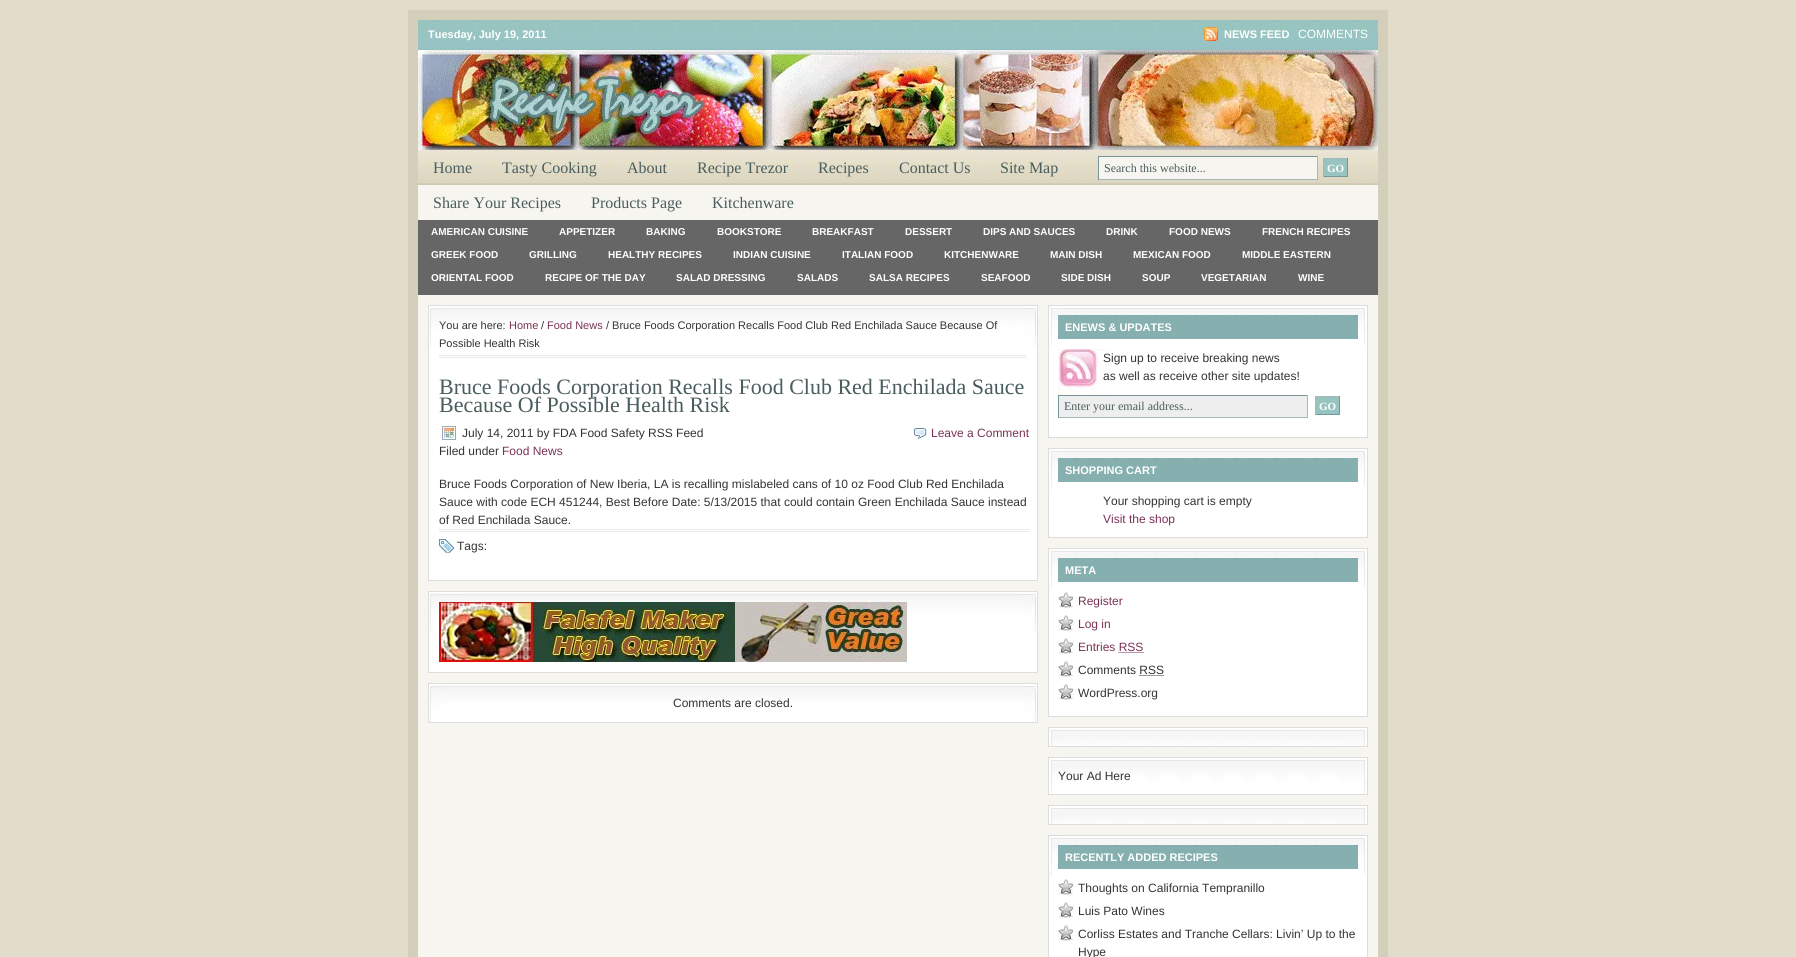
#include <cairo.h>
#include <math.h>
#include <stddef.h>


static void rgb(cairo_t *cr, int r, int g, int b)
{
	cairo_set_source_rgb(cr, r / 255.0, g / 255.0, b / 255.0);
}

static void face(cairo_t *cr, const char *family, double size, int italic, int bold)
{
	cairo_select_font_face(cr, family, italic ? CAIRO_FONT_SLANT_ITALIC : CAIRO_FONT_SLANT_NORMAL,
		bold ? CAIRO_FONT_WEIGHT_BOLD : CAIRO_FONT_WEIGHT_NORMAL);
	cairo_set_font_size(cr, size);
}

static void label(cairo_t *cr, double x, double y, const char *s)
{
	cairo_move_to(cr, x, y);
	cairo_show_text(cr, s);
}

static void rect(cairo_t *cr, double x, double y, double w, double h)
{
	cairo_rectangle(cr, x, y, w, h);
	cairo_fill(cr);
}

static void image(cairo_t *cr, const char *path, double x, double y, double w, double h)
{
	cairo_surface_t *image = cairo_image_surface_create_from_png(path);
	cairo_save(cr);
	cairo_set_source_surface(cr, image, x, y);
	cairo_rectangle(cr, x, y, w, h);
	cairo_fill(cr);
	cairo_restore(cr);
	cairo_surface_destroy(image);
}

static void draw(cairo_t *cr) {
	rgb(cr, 226, 221, 203);
	cairo_paint(cr);
	rgb(cr, 247, 245, 239);
	rect(cr, 418, 185, 960, 772);
	cairo_rectangle(cr, 413, 15, 970, 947);
	rgb(cr, 212, 207, 187);
	cairo_set_line_width(cr, 10);
	cairo_stroke(cr);
	image(cr, "image0.png", 418, 20, 960, 30);
	face(cr, "Liberation Sans", 11, 0, 1);
	rgb(cr, 255, 255, 255);
	label(cr, 428, 38, "Tuesday, July 19, 2011");
	image(cr, "image1.png", 1204, 27, 14, 14);
	label(cr, 1224, 38, "NEWS FEED");
	face(cr, "Liberation Sans", 12, 0, 0);
	label(cr, 1298, 38, "COMMENTS");
	image(cr, "image2.png", 868, 50, 510, 100);
	image(cr, "image3.png", 418, 50, 450, 100);
	image(cr, "image4.png", 418, 150, 960, 35);
	face(cr, "Liberation Serif", 16, 0, 0);
	rgb(cr, 73, 93, 92);
	label(cr, 433, 173, "Home");
	label(cr, 502, 173, "Tasty Cooking");
	label(cr, 627, 173, "About");
	label(cr, 697, 173, "Recipe Trezor");
	label(cr, 818, 173, "Recipes");
	label(cr, 899, 173, "Contact Us");
	label(cr, 1000, 173, "Site Map");
	label(cr, 433, 208, "Share Your Recipes");
	label(cr, 591, 208, "Products Page");
	label(cr, 712, 208, "Kitchenware");
	rgb(cr, 247, 245, 239);
	rect(cr, 1099, 157, 218, 22);
	rgb(cr, 117, 150, 151);
	rect(cr, 1098, 156, 220, 1);
	rgb(cr, 163, 186, 185);
	rect(cr, 1317, 156, 1, 24);
	rect(cr, 1098, 179, 220, 1);
	rgb(cr, 117, 150, 151);
	rect(cr, 1098, 156, 1, 24);
	face(cr, "Liberation Serif", 12, 0, 0);
	rgb(cr, 73, 93, 92);
	label(cr, 1104, 172, "Search this website...");
	image(cr, "image5.png", 1324, 159, 23, 17);
	rgb(cr, 163, 186, 185);
	rect(cr, 1323, 158, 25, 1);
	rgb(cr, 117, 150, 151);
	rect(cr, 1347, 158, 1, 19);
	rect(cr, 1323, 176, 25, 1);
	rgb(cr, 163, 186, 185);
	rect(cr, 1323, 158, 1, 19);
	face(cr, "Liberation Serif", 11, 0, 1);
	rgb(cr, 255, 255, 255);
	label(cr, 1327, 172, "GO");
	rgb(cr, 102, 102, 102);
	rect(cr, 418, 220, 960, 75);
	face(cr, "Liberation Sans", 10, 0, 1);
	rgb(cr, 255, 255, 255);
	label(cr, 431, 235, "AMERICAN CUISINE");
	label(cr, 559, 235, "APPETIZER");
	label(cr, 646, 235, "BAKING");
	label(cr, 717, 235, "BOOKSTORE");
	label(cr, 812, 235, "BREAKFAST");
	label(cr, 905, 235, "DESSERT");
	label(cr, 983, 235, "DIPS AND SAUCES");
	label(cr, 1106, 235, "DRINK");
	label(cr, 1169, 235, "FOOD NEWS");
	label(cr, 1262, 235, "FRENCH RECIPES");
	label(cr, 431, 258, "GREEK FOOD");
	label(cr, 529, 258, "GRILLING");
	label(cr, 608, 258, "HEALTHY RECIPES");
	label(cr, 733, 258, "INDIAN CUISINE");
	label(cr, 842, 258, "ITALIAN FOOD");
	label(cr, 944, 258, "KITCHENWARE");
	label(cr, 1050, 258, "MAIN DISH");
	label(cr, 1133, 258, "MEXICAN FOOD");
	label(cr, 1242, 258, "MIDDLE EASTERN");
	label(cr, 431, 281, "ORIENTAL FOOD");
	label(cr, 545, 281, "RECIPE OF THE DAY");
	label(cr, 676, 281, "SALAD DRESSING");
	label(cr, 797, 281, "SALADS");
	label(cr, 869, 281, "SALSA RECIPES");
	label(cr, 981, 281, "SEAFOOD");
	label(cr, 1061, 281, "SIDE DISH");
	label(cr, 1142, 281, "SOUP");
	label(cr, 1201, 281, "VEGETARIAN");
	label(cr, 1298, 281, "WINE");
	rect(cr, 429, 306, 608, 274);
	image(cr, "image6.png", 430, 307, 606, 39);
	cairo_rectangle(cr, 428.5, 305.5, 609, 275);
	rgb(cr, 221, 221, 221);
	cairo_set_line_width(cr, 1);
	cairo_stroke(cr);
	rgb(cr, 234, 234, 234);
	rect(cr, 439, 355, 588, 1);
	rect(cr, 439, 357, 588, 1);
	face(cr, "Liberation Sans", 11, 0, 0);
	rgb(cr, 51, 51, 51);
	label(cr, 439, 329, "You are here:");
	rgb(cr, 122, 50, 84);
	label(cr, 509, 329, "Home");
	rgb(cr, 51, 51, 51);
	label(cr, 541, 329, "/");
	rgb(cr, 122, 50, 84);
	label(cr, 547, 329, "Food News");
	rgb(cr, 51, 51, 51);
	label(cr, 606, 329, "/ Bruce Foods Corporation Recalls Food Club Red Enchilada Sauce Because Of");
	label(cr, 439, 347, "Possible Health Risk");
	face(cr, "Liberation Serif", 22, 0, 0);
	rgb(cr, 73, 93, 92);
	label(cr, 439, 394, "Bruce Foods Corporation Recalls Food Club Red Enchilada Sauce");
	label(cr, 439, 412, "Because Of Possible Health Risk");
	image(cr, "image7.png", 442, 426, 14, 14);
	face(cr, "Liberation Sans", 12, 0, 0);
	rgb(cr, 51, 51, 51);
	label(cr, 462, 437, "July 14, 2011 by FDA Food Safety RSS Feed");
	label(cr, 439, 455, "Filed under");
	rgb(cr, 122, 50, 84);
	label(cr, 502, 455, "Food News");
	image(cr, "image8.png", 913, 426, 14, 14);
	label(cr, 931, 437, "Leave a Comment");
	rgb(cr, 51, 51, 51);
	label(cr, 439, 488, "Bruce Foods Corporation of New Iberia, LA is recalling mislabeled cans of 10 oz Food Club Red Enchilada");
	label(cr, 439, 506, "Sauce with code ECH 451244, Best Before Date: 5/13/2015 that could contain Green Enchilada Sauce instead");
	label(cr, 439, 524, "of Red Enchilada Sauce.");
	rgb(cr, 234, 234, 234);
	rect(cr, 439, 529, 590, 1);
	rect(cr, 439, 531, 590, 1);
	image(cr, "image9.png", 439, 539, 16, 14);
	rgb(cr, 51, 51, 51);
	label(cr, 457, 550, "Tags:");
	rgb(cr, 255, 255, 255);
	rect(cr, 429, 592, 608, 80);
	image(cr, "image6.png", 430, 593, 606, 39);
	cairo_rectangle(cr, 428.5, 591.5, 609, 81);
	rgb(cr, 221, 221, 221);
	cairo_stroke(cr);
	image(cr, "image10.png", 439, 602, 468, 60);
	rgb(cr, 255, 255, 255);
	rect(cr, 429, 684, 608, 38);
	image(cr, "image11.png", 430, 685, 606, 37);
	cairo_rectangle(cr, 428.5, 683.5, 609, 39);
	rgb(cr, 221, 221, 221);
	cairo_stroke(cr);
	rgb(cr, 51, 51, 51);
	label(cr, 673, 707, "Comments are closed.");
	rgb(cr, 255, 255, 255);
	rect(cr, 1049, 346, 318, 91);
	image(cr, "image12.png", 1049, 306, 318, 40);
	cairo_rectangle(cr, 1048.5, 305.5, 319, 132);
	rgb(cr, 221, 221, 221);
	cairo_stroke(cr);
	rgb(cr, 134, 175, 176);
	rect(cr, 1058, 315, 300, 24);
	image(cr, "image13.png", 1074, 315, 284, 1);
	face(cr, "Liberation Sans", 11, 0, 1);
	rgb(cr, 255, 255, 255);
	label(cr, 1065, 331, "ENEWS & UPDATES");
	image(cr, "image14.png", 1058, 349, 54, 46);
	face(cr, "Liberation Sans", 12, 0, 0);
	rgb(cr, 51, 51, 51);
	label(cr, 1103, 362, "Sign up to receive breaking news");
	label(cr, 1103, 380, "as well as receive other site updates!");
	rgb(cr, 238, 238, 238);
	rect(cr, 1059, 396, 248, 21);
	rgb(cr, 117, 150, 151);
	rect(cr, 1058, 395, 250, 1);
	rgb(cr, 163, 186, 185);
	rect(cr, 1307, 395, 1, 23);
	rect(cr, 1058, 417, 250, 1);
	rgb(cr, 117, 150, 151);
	rect(cr, 1058, 395, 1, 23);
	face(cr, "Liberation Serif", 12, 0, 0);
	rgb(cr, 73, 93, 92);
	label(cr, 1064, 410, "Enter your email address...");
	image(cr, "image5.png", 1316, 397, 23, 17);
	rgb(cr, 163, 186, 185);
	rect(cr, 1315, 396, 25, 1);
	rgb(cr, 117, 150, 151);
	rect(cr, 1339, 396, 1, 19);
	rect(cr, 1315, 414, 25, 1);
	rgb(cr, 163, 186, 185);
	rect(cr, 1315, 396, 1, 19);
	face(cr, "Liberation Serif", 11, 0, 1);
	rgb(cr, 255, 255, 255);
	label(cr, 1319, 410, "GO");
	rect(cr, 1049, 489, 318, 48);
	image(cr, "image12.png", 1049, 449, 318, 40);
	cairo_rectangle(cr, 1048.5, 448.5, 319, 89);
	rgb(cr, 221, 221, 221);
	cairo_stroke(cr);
	rgb(cr, 134, 175, 176);
	rect(cr, 1058, 458, 300, 24);
	image(cr, "image13.png", 1074, 458, 284, 1);
	face(cr, "Liberation Sans", 11, 0, 1);
	rgb(cr, 255, 255, 255);
	label(cr, 1065, 474, "SHOPPING CART");
	face(cr, "Liberation Sans", 12, 0, 0);
	rgb(cr, 51, 51, 51);
	label(cr, 1103, 505, "Your shopping cart is empty");
	rgb(cr, 122, 50, 84);
	label(cr, 1103, 523, "Visit the shop");
	rgb(cr, 255, 255, 255);
	rect(cr, 1049, 589, 318, 127);
	image(cr, "image12.png", 1049, 549, 318, 40);
	cairo_rectangle(cr, 1048.5, 548.5, 319, 168);
	rgb(cr, 221, 221, 221);
	cairo_stroke(cr);
	rgb(cr, 134, 175, 176);
	rect(cr, 1058, 558, 300, 24);
	image(cr, "image13.png", 1074, 558, 284, 1);
	face(cr, "Liberation Sans", 11, 0, 1);
	rgb(cr, 255, 255, 255);
	label(cr, 1065, 574, "META");
	image(cr, "image15.png", 1058, 592, 16, 16);
	face(cr, "Liberation Sans", 12, 0, 0);
	rgb(cr, 122, 50, 84);
	label(cr, 1078, 605, "Register");
	image(cr, "image15.png", 1058, 615, 16, 16);
	label(cr, 1078, 628, "Log in");
	image(cr, "image15.png", 1058, 638, 16, 16);
	label(cr, 1078, 651, "Entries RSS");
	cairo_new_path(cr);
	cairo_move_to(cr, 1118.5, 652.5);
	cairo_line_to(cr, 1143.5, 652.5);
	cairo_set_dash(cr, (double[]){1, 1}, 2, 0);
	cairo_stroke(cr);
	image(cr, "image15.png", 1058, 661, 16, 16);
	rgb(cr, 51, 51, 51);
	label(cr, 1078, 674, "Comments RSS");
	cairo_new_path(cr);
	cairo_move_to(cr, 1139.5, 675.5);
	cairo_line_to(cr, 1164, 675.5);
	cairo_stroke(cr);
	image(cr, "image15.png", 1058, 684, 16, 16);
	label(cr, 1078, 697, "WordPress.org");
	image(cr, "image16.png", 1049, 728, 318, 18);
	cairo_rectangle(cr, 1048.5, 727.5, 319, 19);
	rgb(cr, 221, 221, 221);
	cairo_set_dash(cr, NULL, 0, 0);
	cairo_stroke(cr);
	image(cr, "image17.png", 1049, 758, 318, 36);
	cairo_rectangle(cr, 1048.5, 757.5, 319, 37);
	cairo_stroke(cr);
	rgb(cr, 51, 51, 51);
	label(cr, 1058, 780, "Your Ad Here");
	image(cr, "image16.png", 1049, 806, 318, 18);
	cairo_rectangle(cr, 1048.5, 805.5, 319, 19);
	rgb(cr, 221, 221, 221);
	cairo_stroke(cr);
	rgb(cr, 255, 255, 255);
	rect(cr, 1049, 876, 318, 81);
	image(cr, "image12.png", 1049, 836, 318, 40);
	cairo_rectangle(cr, 1048.5, 835.5, 319, 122);
	rgb(cr, 221, 221, 221);
	cairo_stroke(cr);
	rgb(cr, 134, 175, 176);
	rect(cr, 1058, 845, 300, 24);
	image(cr, "image13.png", 1074, 845, 284, 1);
	face(cr, "Liberation Sans", 11, 0, 1);
	rgb(cr, 255, 255, 255);
	label(cr, 1065, 861, "RECENTLY ADDED RECIPES");
	image(cr, "image15.png", 1058, 879, 16, 16);
	face(cr, "Liberation Sans", 12, 0, 0);
	rgb(cr, 51, 51, 51);
	label(cr, 1078, 892, "Thoughts on California Tempranillo");
	image(cr, "image15.png", 1058, 902, 16, 16);
	label(cr, 1078, 915, "Luis Pato Wines");
	image(cr, "image15.png", 1058, 925, 16, 16);
	label(cr, 1078, 938, "Corliss Estates and Tranche Cellars: Livin’ Up to the");
	label(cr, 1078, 956, "Hype");
}

int main(void) {
	cairo_surface_t *surface = cairo_image_surface_create(CAIRO_FORMAT_RGB24, 1796, 957);
	cairo_t *cr = cairo_create(surface);
	cairo_font_options_t *options = cairo_font_options_create();
	cairo_font_options_set_hint_metrics(options, CAIRO_HINT_METRICS_OFF);
	cairo_font_options_set_hint_style(options, CAIRO_HINT_STYLE_NONE);
	cairo_set_font_options(cr, options);
	cairo_set_miter_limit(cr, 4);
	draw(cr);
	cairo_surface_write_to_png(surface, "render.png");
	cairo_font_options_destroy(options);
	cairo_destroy(cr);
	cairo_surface_destroy(surface);
	return 0;
}
